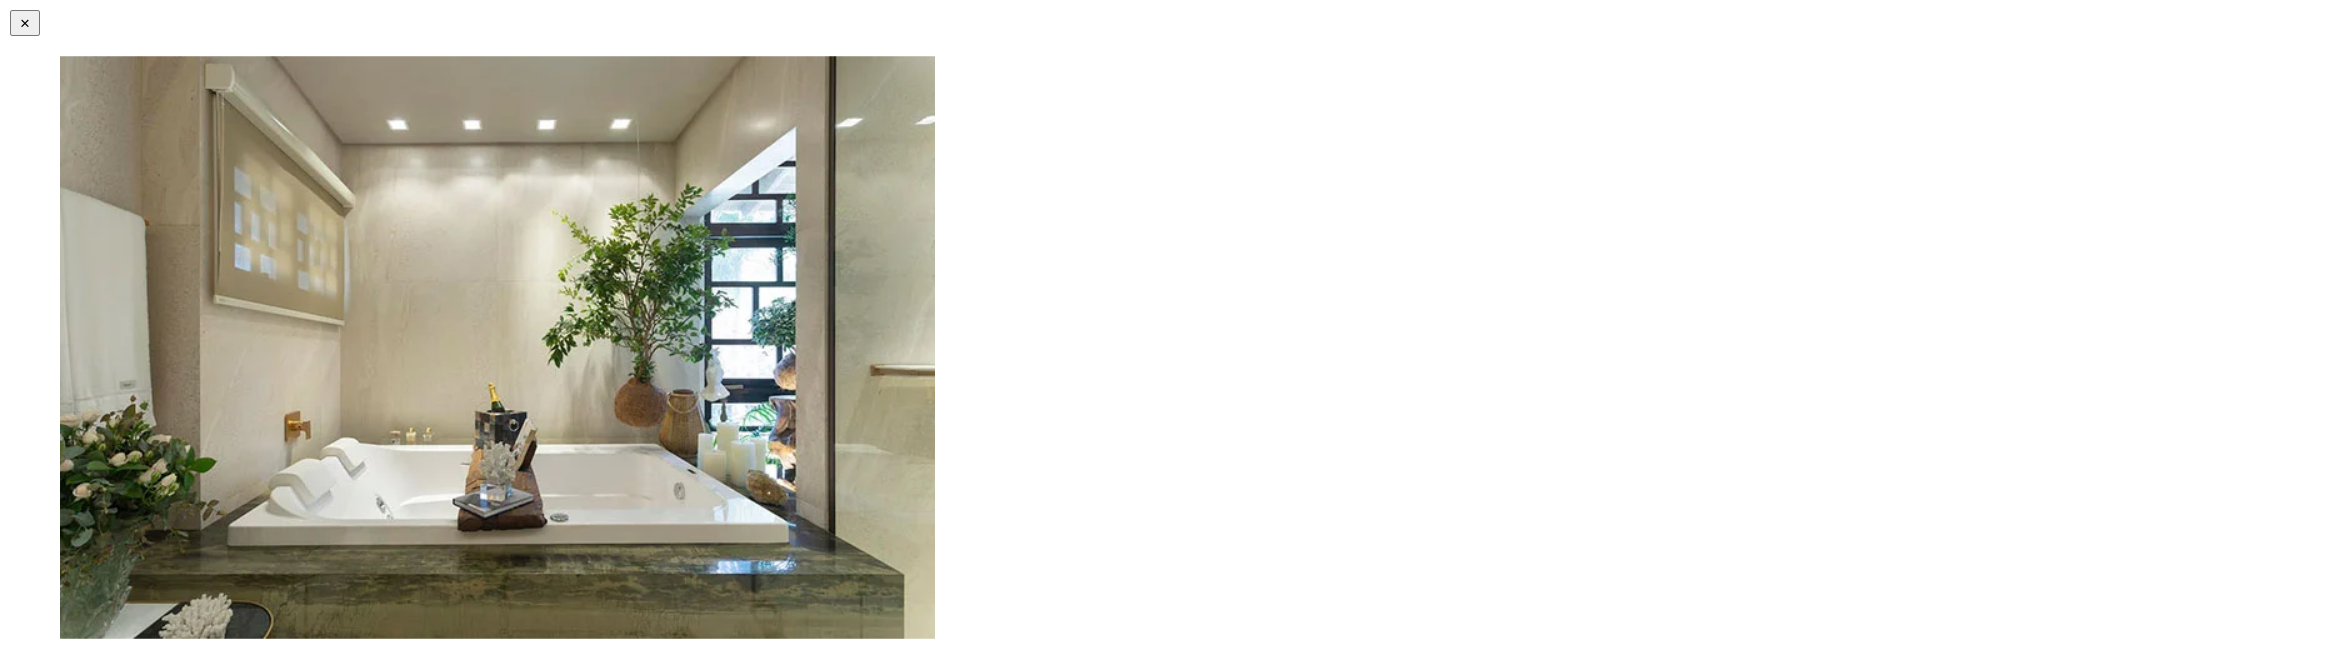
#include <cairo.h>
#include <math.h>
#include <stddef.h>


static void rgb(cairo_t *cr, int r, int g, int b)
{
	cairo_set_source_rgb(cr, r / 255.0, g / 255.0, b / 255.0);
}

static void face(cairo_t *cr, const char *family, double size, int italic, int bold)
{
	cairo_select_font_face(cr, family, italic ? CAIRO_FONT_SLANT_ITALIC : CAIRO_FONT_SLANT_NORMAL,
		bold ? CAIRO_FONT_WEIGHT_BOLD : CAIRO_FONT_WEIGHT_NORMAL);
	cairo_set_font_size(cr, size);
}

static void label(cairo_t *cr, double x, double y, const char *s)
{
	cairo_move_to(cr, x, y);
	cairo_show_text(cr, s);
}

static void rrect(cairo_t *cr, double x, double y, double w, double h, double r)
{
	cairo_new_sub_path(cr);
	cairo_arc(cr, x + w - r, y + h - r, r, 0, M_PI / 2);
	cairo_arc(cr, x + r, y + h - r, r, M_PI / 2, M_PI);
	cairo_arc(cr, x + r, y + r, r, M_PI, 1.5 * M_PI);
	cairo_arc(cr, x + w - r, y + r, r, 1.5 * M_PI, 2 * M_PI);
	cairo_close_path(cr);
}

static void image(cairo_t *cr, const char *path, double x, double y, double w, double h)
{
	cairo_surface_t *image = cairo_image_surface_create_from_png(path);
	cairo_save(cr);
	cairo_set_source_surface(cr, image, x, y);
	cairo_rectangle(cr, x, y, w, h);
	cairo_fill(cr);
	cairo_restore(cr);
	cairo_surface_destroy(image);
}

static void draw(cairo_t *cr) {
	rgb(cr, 255, 255, 255);
	cairo_paint(cr);
	rgb(cr, 239, 239, 239);
	rrect(cr, 10.5, 10.5, 29, 25, 2);
	cairo_fill_preserve(cr);
	rgb(cr, 118, 118, 118);
	cairo_set_line_width(cr, 1);
	cairo_stroke(cr);
	face(cr, "Liberation Sans", 17, 0, 0);
	rgb(cr, 0, 0, 0);
	label(cr, 20, 29, "×");
	image(cr, "image0.png", 60, 56, 875, 583);
}

int main(void) {
	cairo_surface_t *surface = cairo_image_surface_create(CAIRO_FORMAT_RGB24, 2331, 659);
	cairo_t *cr = cairo_create(surface);
	cairo_font_options_t *options = cairo_font_options_create();
	cairo_font_options_set_hint_metrics(options, CAIRO_HINT_METRICS_OFF);
	cairo_font_options_set_hint_style(options, CAIRO_HINT_STYLE_NONE);
	cairo_set_font_options(cr, options);
	cairo_set_miter_limit(cr, 4);
	draw(cr);
	cairo_surface_write_to_png(surface, "render.png");
	cairo_font_options_destroy(options);
	cairo_destroy(cr);
	cairo_surface_destroy(surface);
	return 0;
}
